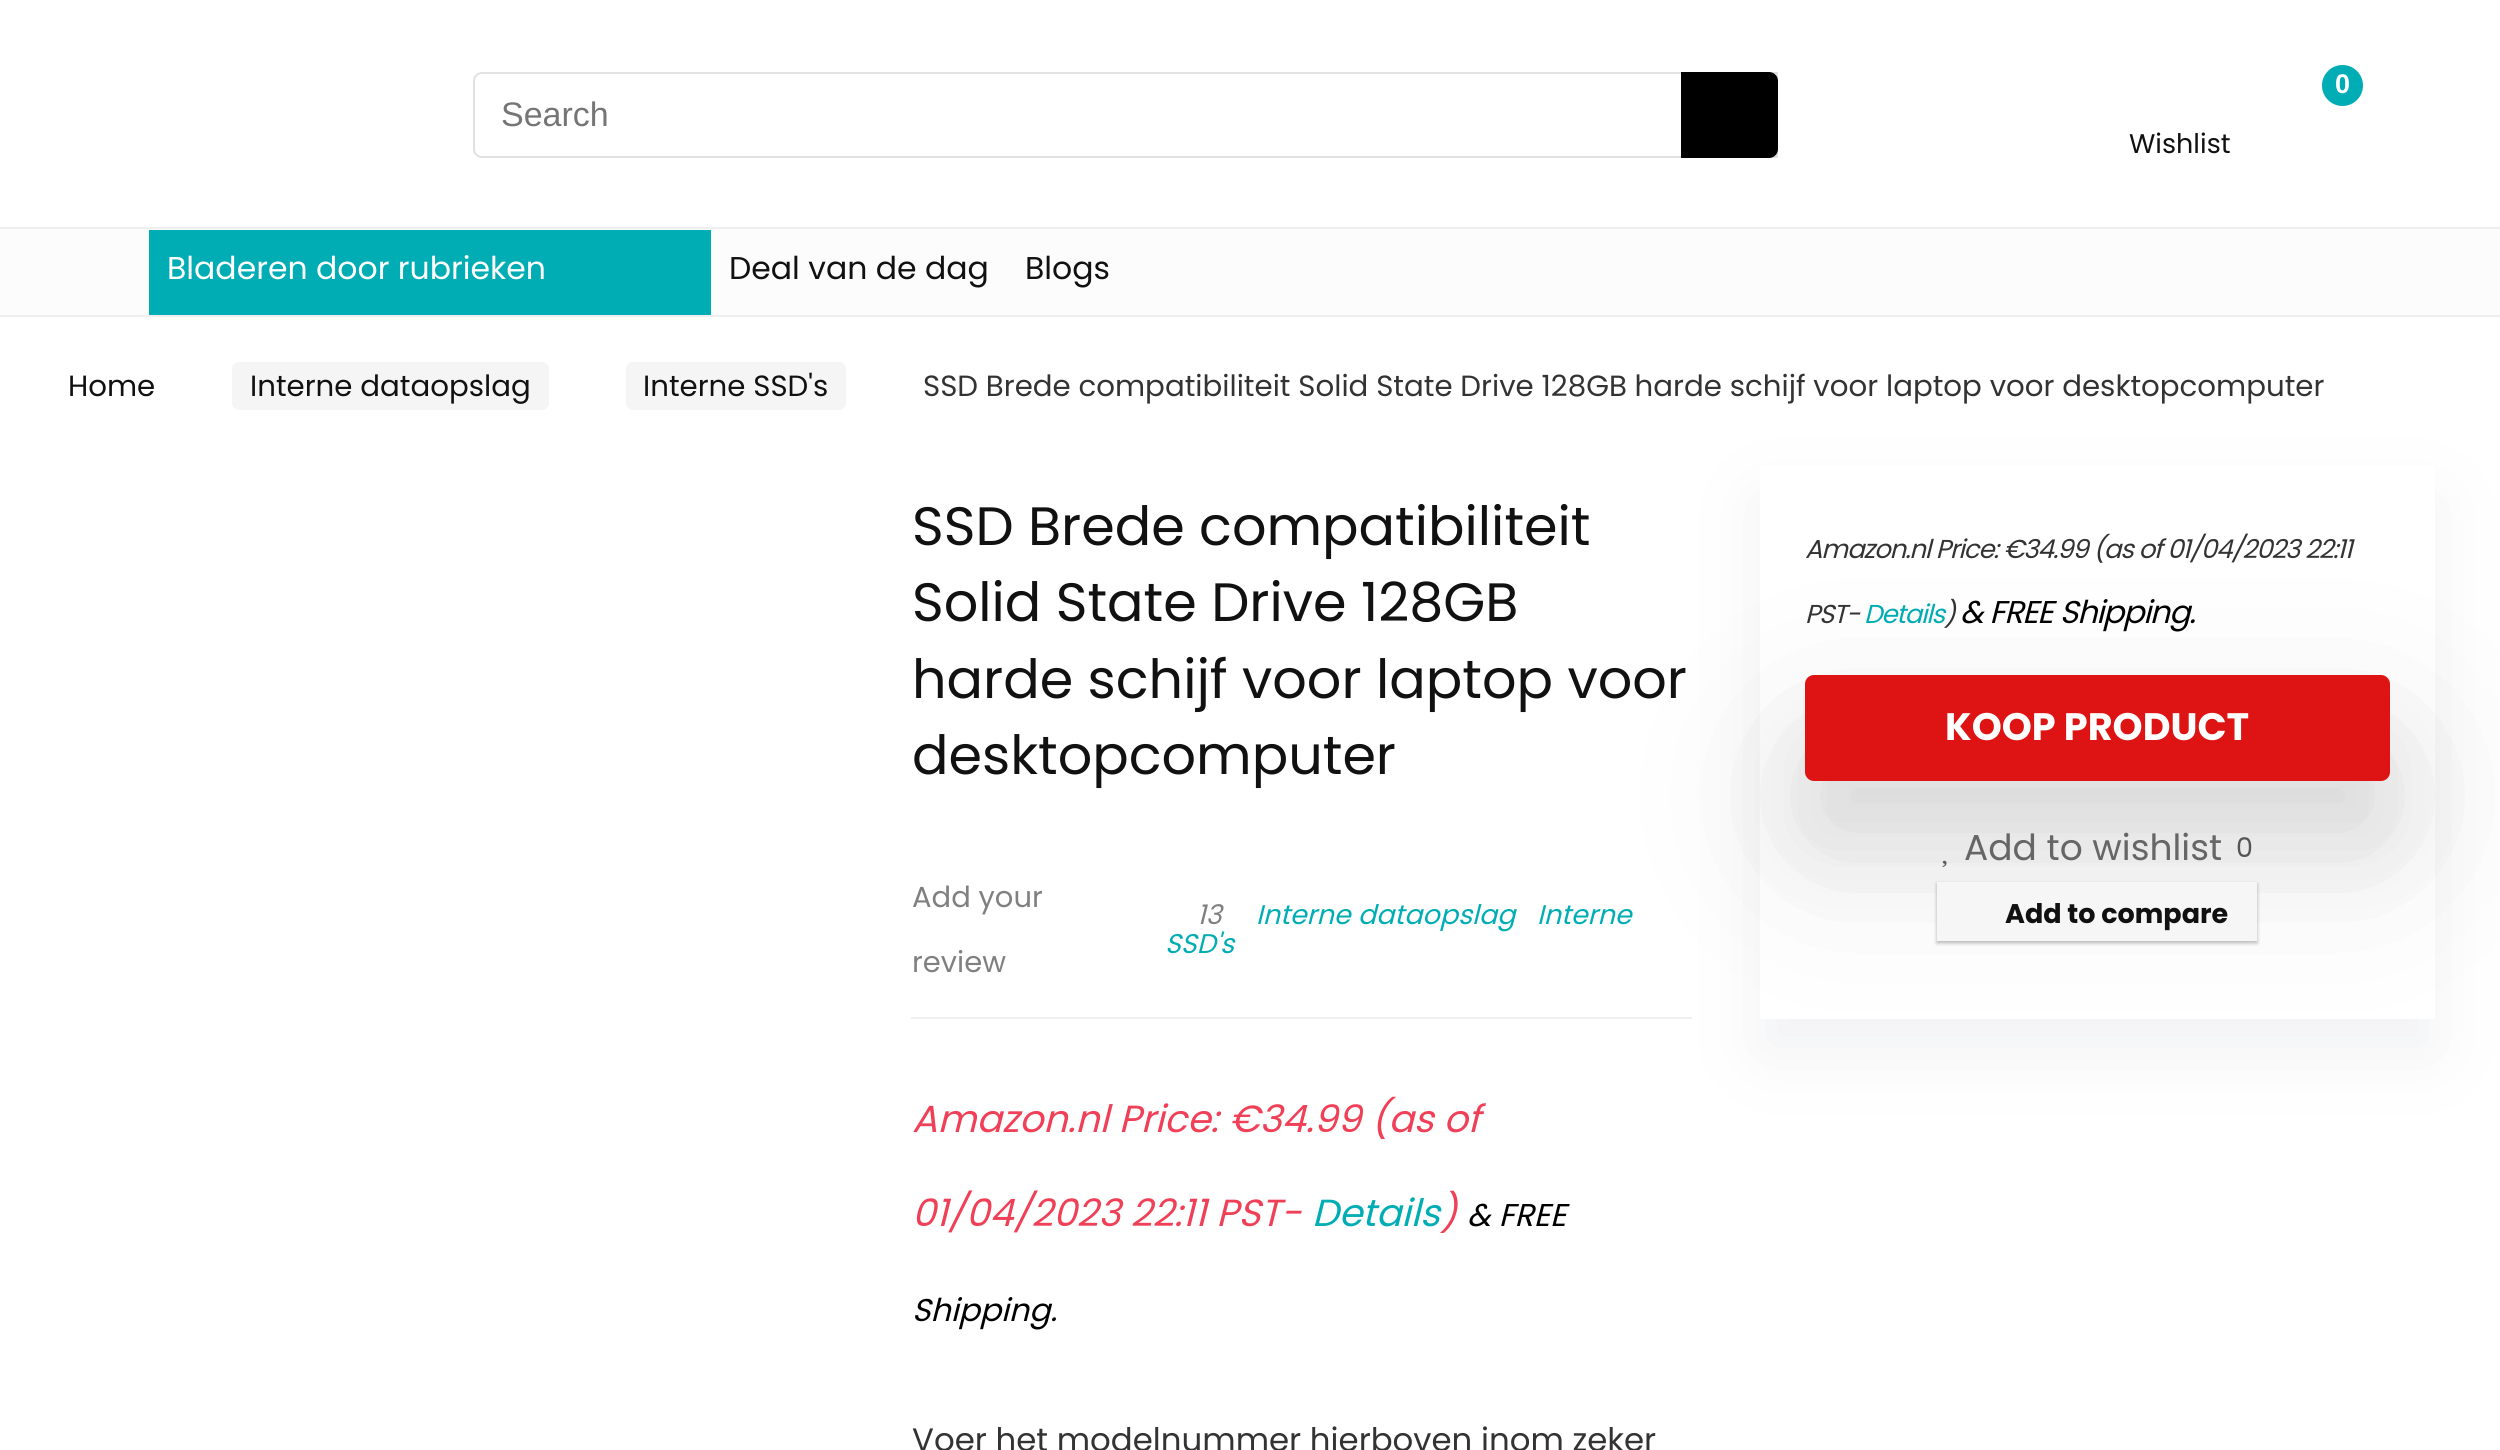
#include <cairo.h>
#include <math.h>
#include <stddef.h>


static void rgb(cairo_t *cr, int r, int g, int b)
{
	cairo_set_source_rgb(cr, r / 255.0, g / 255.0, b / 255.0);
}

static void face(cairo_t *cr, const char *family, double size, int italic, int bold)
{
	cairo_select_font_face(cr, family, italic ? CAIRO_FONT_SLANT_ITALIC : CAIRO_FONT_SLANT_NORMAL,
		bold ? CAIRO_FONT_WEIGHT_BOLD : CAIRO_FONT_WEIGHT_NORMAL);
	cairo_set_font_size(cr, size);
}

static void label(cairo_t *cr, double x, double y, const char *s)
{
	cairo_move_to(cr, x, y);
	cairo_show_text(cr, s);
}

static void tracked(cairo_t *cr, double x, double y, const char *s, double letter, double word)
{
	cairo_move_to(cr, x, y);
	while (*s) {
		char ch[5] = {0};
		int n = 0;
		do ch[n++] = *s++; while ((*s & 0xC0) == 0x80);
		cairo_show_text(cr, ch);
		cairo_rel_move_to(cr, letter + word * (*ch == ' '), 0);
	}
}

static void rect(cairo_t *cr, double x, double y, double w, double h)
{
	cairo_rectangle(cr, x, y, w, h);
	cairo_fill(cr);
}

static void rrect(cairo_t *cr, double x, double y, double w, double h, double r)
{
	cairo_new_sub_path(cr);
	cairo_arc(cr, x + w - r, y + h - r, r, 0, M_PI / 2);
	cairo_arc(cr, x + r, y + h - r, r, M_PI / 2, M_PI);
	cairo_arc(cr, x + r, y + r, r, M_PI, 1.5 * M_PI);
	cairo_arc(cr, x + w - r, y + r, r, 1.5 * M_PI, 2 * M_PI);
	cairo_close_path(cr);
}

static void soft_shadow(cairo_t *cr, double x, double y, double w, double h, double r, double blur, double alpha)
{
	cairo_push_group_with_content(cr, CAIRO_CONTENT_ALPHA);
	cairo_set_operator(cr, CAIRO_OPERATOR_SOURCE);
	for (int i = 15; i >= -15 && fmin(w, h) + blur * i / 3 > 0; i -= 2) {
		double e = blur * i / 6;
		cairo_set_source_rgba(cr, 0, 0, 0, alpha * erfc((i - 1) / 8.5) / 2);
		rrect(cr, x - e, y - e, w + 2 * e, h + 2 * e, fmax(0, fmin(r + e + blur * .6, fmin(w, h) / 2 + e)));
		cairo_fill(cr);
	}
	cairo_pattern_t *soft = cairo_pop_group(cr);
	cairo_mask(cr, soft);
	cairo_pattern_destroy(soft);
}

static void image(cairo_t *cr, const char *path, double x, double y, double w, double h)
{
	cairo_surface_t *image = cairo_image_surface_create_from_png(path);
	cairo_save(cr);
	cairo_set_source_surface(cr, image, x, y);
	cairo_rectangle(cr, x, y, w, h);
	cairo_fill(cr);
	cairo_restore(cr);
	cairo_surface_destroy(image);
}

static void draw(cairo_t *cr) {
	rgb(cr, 255, 255, 255);
	cairo_paint(cr);
	cairo_new_path(cr);
	cairo_move_to(cr, 482, 73);
	cairo_line_to(cr, 1777, 73);
	cairo_line_to(cr, 1777, 157);
	cairo_line_to(cr, 482, 157);
	cairo_curve_to(cr, 477.5, 157, 474, 153.5, 474, 149);
	cairo_line_to(cr, 474, 81);
	cairo_curve_to(cr, 474, 76.5, 477.5, 73, 482, 73);
	cairo_close_path(cr);
	rgb(cr, 225, 225, 225);
	cairo_stroke(cr);
	face(cr, "Liberation Sans", 34, 0, 0);
	rgb(cr, 117, 117, 117);
	label(cr, 501, 126, "Search");
	rgb(cr, 0, 0, 0);
	cairo_new_path(cr);
	cairo_move_to(cr, 1681, 72);
	cairo_line_to(cr, 1769, 72);
	cairo_curve_to(cr, 1774, 72, 1778, 76, 1778, 81);
	cairo_line_to(cr, 1778, 149);
	cairo_curve_to(cr, 1778, 154, 1774, 158, 1769, 158);
	cairo_line_to(cr, 1681, 158);
	cairo_close_path(cr);
	cairo_fill(cr);
	rgb(cr, 0, 173, 181);
	cairo_arc(cr, 2342.5, 85.5, 20.5, 0, 2 * M_PI);
	cairo_fill(cr);
	face(cr, "Liberation Sans", 27, 0, 1);
	rgb(cr, 255, 255, 255);
	label(cr, 2335, 93, "0");
	face(cr, "Poppins", 27, 0, 0);
	rgb(cr, 17, 17, 17);
	label(cr, 2129, 153, "Wishlist");
	rgb(cr, 252, 252, 252);
	rect(cr, 0, 229, 2500, 86);
	rgb(cr, 238, 238, 238);
	rect(cr, 0, 227, 2500, 2);
	rect(cr, 0, 315, 2500, 2);
	rgb(cr, 0, 173, 181);
	rect(cr, 149, 230, 562, 85);
	face(cr, "Poppins", 31.5, 0, 0);
	rgb(cr, 255, 255, 255);
	label(cr, 167, 279, "Bladeren door rubrieken");
	rgb(cr, 17, 17, 17);
	label(cr, 729, 279, "Deal van de dag");
	label(cr, 1025, 279, "Blogs");
	face(cr, "Poppins", 29.25, 0, 0);
	label(cr, 68, 396, "Home");
	rgb(cr, 245, 245, 245);
	rrect(cr, 232, 362, 317, 48, 7);
	cairo_fill(cr);
	rgb(cr, 17, 17, 17);
	label(cr, 250, 396, "Interne dataopslag");
	rgb(cr, 245, 245, 245);
	rrect(cr, 626, 362, 220, 48, 7);
	cairo_fill(cr);
	rgb(cr, 17, 17, 17);
	label(cr, 643, 396, "Interne SSD's");
	cairo_save(cr);
	cairo_set_fill_rule(cr, CAIRO_FILL_RULE_EVEN_ODD);
	cairo_new_path(cr);
	cairo_move_to(cr, 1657, 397);
	cairo_line_to(cr, 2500, 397);
	cairo_line_to(cr, 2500, 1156);
	cairo_line_to(cr, 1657, 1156);
	cairo_close_path(cr);
	cairo_move_to(cr, 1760, 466);
	cairo_line_to(cr, 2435, 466);
	cairo_line_to(cr, 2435, 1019);
	cairo_line_to(cr, 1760, 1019);
	cairo_close_path(cr);
	cairo_clip(cr);
	rgb(cr, 119, 123, 146);
	soft_shadow(cr, 1760, 500, 675, 553, 0, 34, 0.1);
	cairo_restore(cr);
	rgb(cr, 51, 51, 51);
	label(cr, 923, 396, "SSD Brede compatibiliteit Solid State Drive 128GB harde schijf voor laptop voor desktopcomputer");
	face(cr, "Poppins", 54, 0, 0);
	rgb(cr, 17, 17, 17);
	label(cr, 912, 545, "SSD Brede compatibiliteit");
	label(cr, 912, 621, "Solid State Drive 128GB");
	label(cr, 912, 698, "harde schijf voor laptop voor");
	label(cr, 912, 774, "desktopcomputer");
	face(cr, "Poppins", 29, 0, 0);
	rgb(cr, 128, 128, 128);
	label(cr, 912, 907, "Add your");
	label(cr, 912, 972, "review");
	face(cr, "Poppins", 27, 1, 0);
	label(cr, 1197, 924, "13");
	rgb(cr, 0, 173, 181);
	label(cr, 1256, 924, "Interne dataopslag");
	label(cr, 1537, 924, "Interne");
	label(cr, 1165, 953, "SSD's");
	rgb(cr, 240, 240, 240);
	rect(cr, 911, 1017, 781, 2);
	face(cr, "Poppins", 37.75, 1, 0);
	rgb(cr, 240, 64, 87);
	label(cr, 912, 1132, "Amazon.nl Price:");
	label(cr, 1229, 1132, "€34.99 (as of");
	label(cr, 912, 1226, "01/04/2023 22:11 PST-");
	rgb(cr, 0, 173, 181);
	label(cr, 1312, 1226, "Details");
	rgb(cr, 240, 64, 87);
	label(cr, 1440, 1226, ")");
	face(cr, "Poppins", 31.5, 1, 0);
	rgb(cr, 0, 0, 0);
	label(cr, 1467, 1226, "& FREE");
	label(cr, 912, 1321, "Shipping.");
	face(cr, "Poppins", 32.4, 0, 0);
	rgb(cr, 51, 51, 51);
	label(cr, 912, 1451, "Voer het modelnummer hierboven inom zeker");
	face(cr, "Poppins", 25.9, 1, 0);
	tracked(cr, 1805, 558, "Amazon.nl Price: €34.99 (as of 01/04/2023 22:11", -1.1, 0);
	tracked(cr, 1805, 623, "PST-", -1.1, 0);
	rgb(cr, 0, 173, 181);
	tracked(cr, 1864, 623, "Details", -1.1, 0);
	rgb(cr, 51, 51, 51);
	tracked(cr, 1944, 623, ")", -1.1, 0);
	face(cr, "Poppins", 31.5, 1, 0);
	rgb(cr, 0, 0, 0);
	tracked(cr, 1960, 623, "& FREE Shipping.", -1.1, 0);
	image(cr, "image0.png", 1942, 860, 5, 8);
	rgb(cr, 0, 0, 0);
	soft_shadow(cr, 1805, 743, 585, 105, 9, 90, 0.12);
	soft_shadow(cr, 1805, 738, 585, 106, 9, 43, 0.06);
	rgb(cr, 222, 20, 20);
	rrect(cr, 1805, 675, 585, 106, 9);
	cairo_fill(cr);
	face(cr, "Poppins", 38.25, 0, 1);
	rgb(cr, 255, 255, 255);
	label(cr, 1945, 740, "KOOP PRODUCT");
	face(cr, "Poppins", 36, 0, 0);
	rgb(cr, 102, 102, 102);
	label(cr, 1964, 860, "Add to wishlist");
	face(cr, "Poppins", 27, 0, 0);
	rgb(cr, 85, 85, 85);
	label(cr, 2236, 857, "0");
	rgb(cr, 0, 0, 0);
	soft_shadow(cr, 1937, 884, 320, 59, 0, 2, 0.08);
	rgb(cr, 60, 64, 67);
	soft_shadow(cr, 1937, 884, 320, 59, 0, 2, 0.3);
	rgb(cr, 246, 246, 246);
	rect(cr, 1937, 882, 320, 59);
	face(cr, "Poppins", 27, 0, 1);
	rgb(cr, 17, 17, 17);
	label(cr, 2005, 923, "Add to compare");
}

int main(void) {
	cairo_surface_t *surface = cairo_image_surface_create(CAIRO_FORMAT_RGB24, 2500, 1450);
	cairo_t *cr = cairo_create(surface);
	cairo_font_options_t *options = cairo_font_options_create();
	cairo_font_options_set_hint_metrics(options, CAIRO_HINT_METRICS_OFF);
	cairo_font_options_set_hint_style(options, CAIRO_HINT_STYLE_NONE);
	cairo_set_font_options(cr, options);
	cairo_set_miter_limit(cr, 4);
	draw(cr);
	cairo_surface_write_to_png(surface, "render.png");
	cairo_font_options_destroy(options);
	cairo_destroy(cr);
	cairo_surface_destroy(surface);
	return 0;
}
